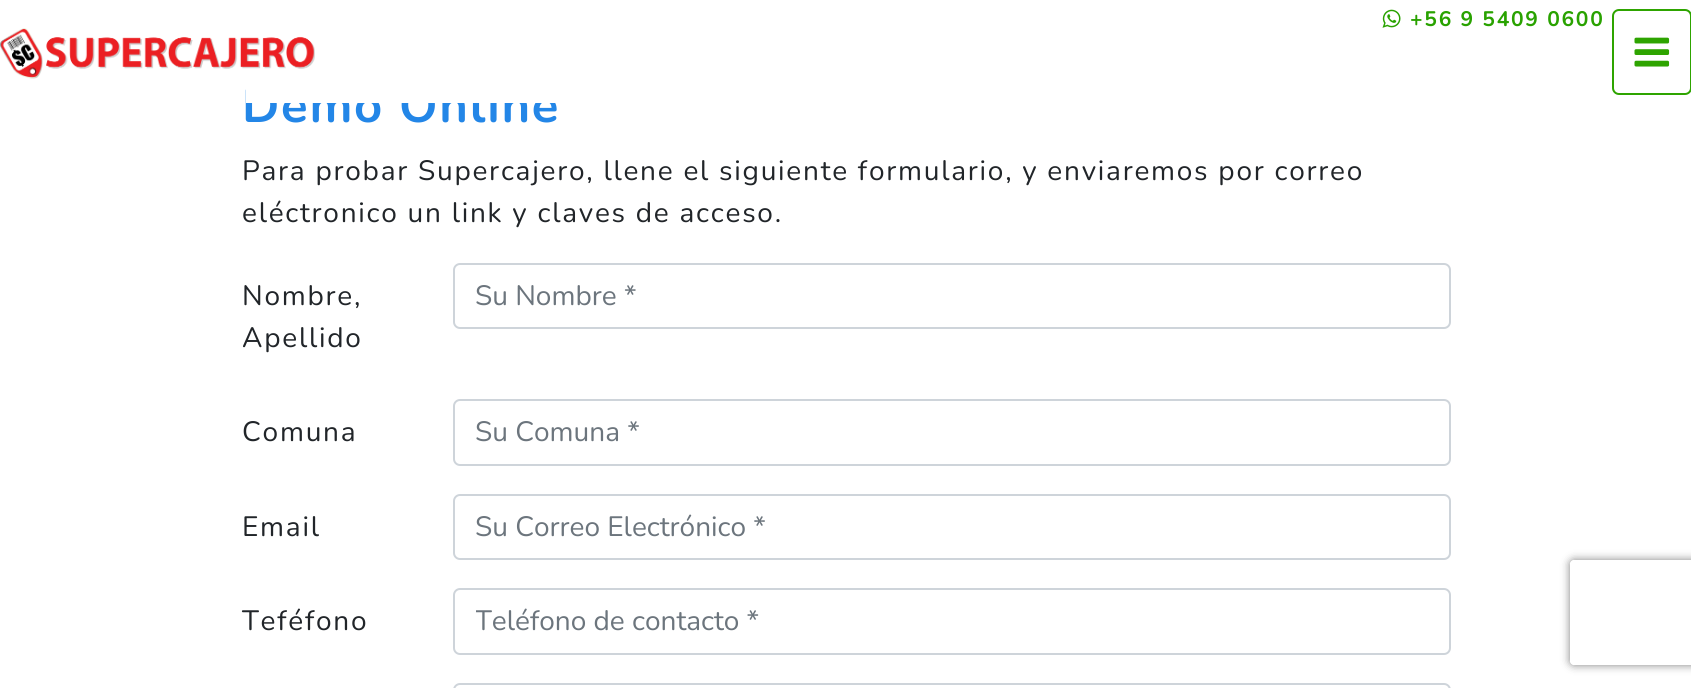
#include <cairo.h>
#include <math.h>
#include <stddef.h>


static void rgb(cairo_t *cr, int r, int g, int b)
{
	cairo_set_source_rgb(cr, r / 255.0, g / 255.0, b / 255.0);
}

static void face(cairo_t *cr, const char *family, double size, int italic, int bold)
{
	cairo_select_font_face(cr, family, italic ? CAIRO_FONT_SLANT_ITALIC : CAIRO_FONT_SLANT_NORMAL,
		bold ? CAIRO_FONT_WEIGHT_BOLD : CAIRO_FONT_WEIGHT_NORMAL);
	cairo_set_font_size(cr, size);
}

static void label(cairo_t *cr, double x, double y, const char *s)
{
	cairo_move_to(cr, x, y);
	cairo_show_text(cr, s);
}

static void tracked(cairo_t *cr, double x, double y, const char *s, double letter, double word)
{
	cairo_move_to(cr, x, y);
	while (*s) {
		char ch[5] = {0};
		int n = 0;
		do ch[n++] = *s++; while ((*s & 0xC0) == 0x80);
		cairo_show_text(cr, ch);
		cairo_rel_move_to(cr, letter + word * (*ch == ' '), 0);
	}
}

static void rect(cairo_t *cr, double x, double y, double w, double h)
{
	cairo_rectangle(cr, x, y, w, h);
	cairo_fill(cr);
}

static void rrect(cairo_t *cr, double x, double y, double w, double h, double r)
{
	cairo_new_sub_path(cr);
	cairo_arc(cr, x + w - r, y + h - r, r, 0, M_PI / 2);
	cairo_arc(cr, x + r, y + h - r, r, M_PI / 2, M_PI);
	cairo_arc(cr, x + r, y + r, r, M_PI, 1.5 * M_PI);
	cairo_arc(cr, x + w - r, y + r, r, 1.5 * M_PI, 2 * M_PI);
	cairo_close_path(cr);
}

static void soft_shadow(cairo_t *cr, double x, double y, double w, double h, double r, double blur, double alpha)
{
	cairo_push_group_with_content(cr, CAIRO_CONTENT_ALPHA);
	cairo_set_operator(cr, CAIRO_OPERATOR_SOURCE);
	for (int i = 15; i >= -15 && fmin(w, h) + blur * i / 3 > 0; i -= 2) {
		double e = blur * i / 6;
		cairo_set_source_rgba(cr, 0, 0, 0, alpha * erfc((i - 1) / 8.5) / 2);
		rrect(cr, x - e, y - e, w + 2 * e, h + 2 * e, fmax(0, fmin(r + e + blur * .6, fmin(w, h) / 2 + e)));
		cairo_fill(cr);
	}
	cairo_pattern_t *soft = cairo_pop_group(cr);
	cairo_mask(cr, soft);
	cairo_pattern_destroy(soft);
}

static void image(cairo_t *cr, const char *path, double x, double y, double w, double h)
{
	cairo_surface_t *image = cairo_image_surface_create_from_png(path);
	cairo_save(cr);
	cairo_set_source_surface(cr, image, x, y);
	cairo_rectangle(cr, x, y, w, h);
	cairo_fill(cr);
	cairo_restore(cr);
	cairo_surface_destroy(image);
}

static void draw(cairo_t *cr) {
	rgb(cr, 255, 255, 255);
	cairo_paint(cr);
	face(cr, "Nunito", 49, 0, 1);
	rgb(cr, 35, 134, 231);
	tracked(cr, 242, 122, "Demo Online", 1.75, 0);
	rgb(cr, 255, 255, 255);
	rect(cr, 246, 86, 310, 17);
	image(cr, "image0.png", 0, 28, 315, 51);
	rrect(cr, 1613, 10, 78, 84, 6);
	rgb(cr, 46, 164, 0);
	cairo_stroke(cr);
	image(cr, "image1.png", 1634, 37, 36, 30);
	image(cr, "image2.png", 1382, 9, 19, 19);
	face(cr, "Nunito", 21, 0, 1);
	rgb(cr, 41, 162, 0);
	tracked(cr, 1410, 26, "+56 9 5409 0600", 1.75, 0);
	face(cr, "Nunito", 28, 0, 0);
	rgb(cr, 33, 37, 41);
	tracked(cr, 242, 180, "Para probar Supercajero, llene el siguiente formulario, y enviaremos por correo", 1.75, 0);
	tracked(cr, 242, 222, "eléctronico un link y claves de acceso.", 1.75, 0);
	tracked(cr, 242, 305, "Nombre,", 1.75, 0);
	tracked(cr, 242, 347, "Apellido", 1.75, 0);
	rrect(cr, 454, 264, 996, 64, 6);
	rgb(cr, 206, 212, 218);
	cairo_stroke(cr);
	rgb(cr, 108, 117, 125);
	label(cr, 475, 305, "Su Nombre *");
	rgb(cr, 33, 37, 41);
	tracked(cr, 242, 441, "Comuna", 1.75, 0);
	rrect(cr, 454, 400, 996, 65, 6);
	rgb(cr, 206, 212, 218);
	cairo_stroke(cr);
	rgb(cr, 108, 117, 125);
	label(cr, 475, 441, "Su Comuna *");
	rgb(cr, 33, 37, 41);
	tracked(cr, 242, 536, "Email", 1.75, 0);
	rrect(cr, 454, 495, 996, 64, 6);
	rgb(cr, 206, 212, 218);
	cairo_stroke(cr);
	rgb(cr, 108, 117, 125);
	label(cr, 475, 536, "Su Correo Electrónico *");
	rgb(cr, 33, 37, 41);
	tracked(cr, 242, 630, "Teféfono", 1.75, 0);
	rrect(cr, 454, 589, 996, 65, 6);
	rgb(cr, 206, 212, 218);
	cairo_stroke(cr);
	cairo_save(cr);
	cairo_rectangle(cr, 476, 602, 952, 39);
	cairo_clip(cr);
	rgb(cr, 108, 117, 125);
	label(cr, 475, 630, "Teléfono de contacto *");
	cairo_restore(cr);
	rrect(cr, 454, 684, 996, 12, 6);
	cairo_stroke(cr);
	cairo_save(cr);
	cairo_set_fill_rule(cr, CAIRO_FILL_RULE_EVEN_ODD);
	cairo_new_path(cr);
	cairo_move_to(cr, 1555, 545);
	cairo_line_to(cr, 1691, 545);
	cairo_line_to(cr, 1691, 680);
	cairo_line_to(cr, 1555, 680);
	cairo_close_path(cr);
	cairo_move_to(cr, 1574, 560);
	cairo_line_to(cr, 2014, 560);
	cairo_curve_to(cr, 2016, 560, 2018, 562, 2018, 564);
	cairo_line_to(cr, 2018, 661);
	cairo_curve_to(cr, 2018, 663, 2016, 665, 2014, 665);
	cairo_line_to(cr, 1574, 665);
	cairo_curve_to(cr, 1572, 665, 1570, 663, 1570, 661);
	cairo_line_to(cr, 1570, 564);
	cairo_curve_to(cr, 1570, 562, 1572, 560, 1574, 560);
	cairo_close_path(cr);
	cairo_clip(cr);
	rgb(cr, 128, 128, 128);
	soft_shadow(cr, 1570, 560, 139, 105, 4, 4.5, 1);
	cairo_restore(cr);
}

int main(void) {
	cairo_surface_t *surface = cairo_image_surface_create(CAIRO_FORMAT_RGB24, 1691, 688);
	cairo_t *cr = cairo_create(surface);
	cairo_font_options_t *options = cairo_font_options_create();
	cairo_font_options_set_hint_metrics(options, CAIRO_HINT_METRICS_OFF);
	cairo_font_options_set_hint_style(options, CAIRO_HINT_STYLE_NONE);
	cairo_set_font_options(cr, options);
	cairo_set_miter_limit(cr, 4);
	draw(cr);
	cairo_surface_write_to_png(surface, "render.png");
	cairo_font_options_destroy(options);
	cairo_destroy(cr);
	cairo_surface_destroy(surface);
	return 0;
}
